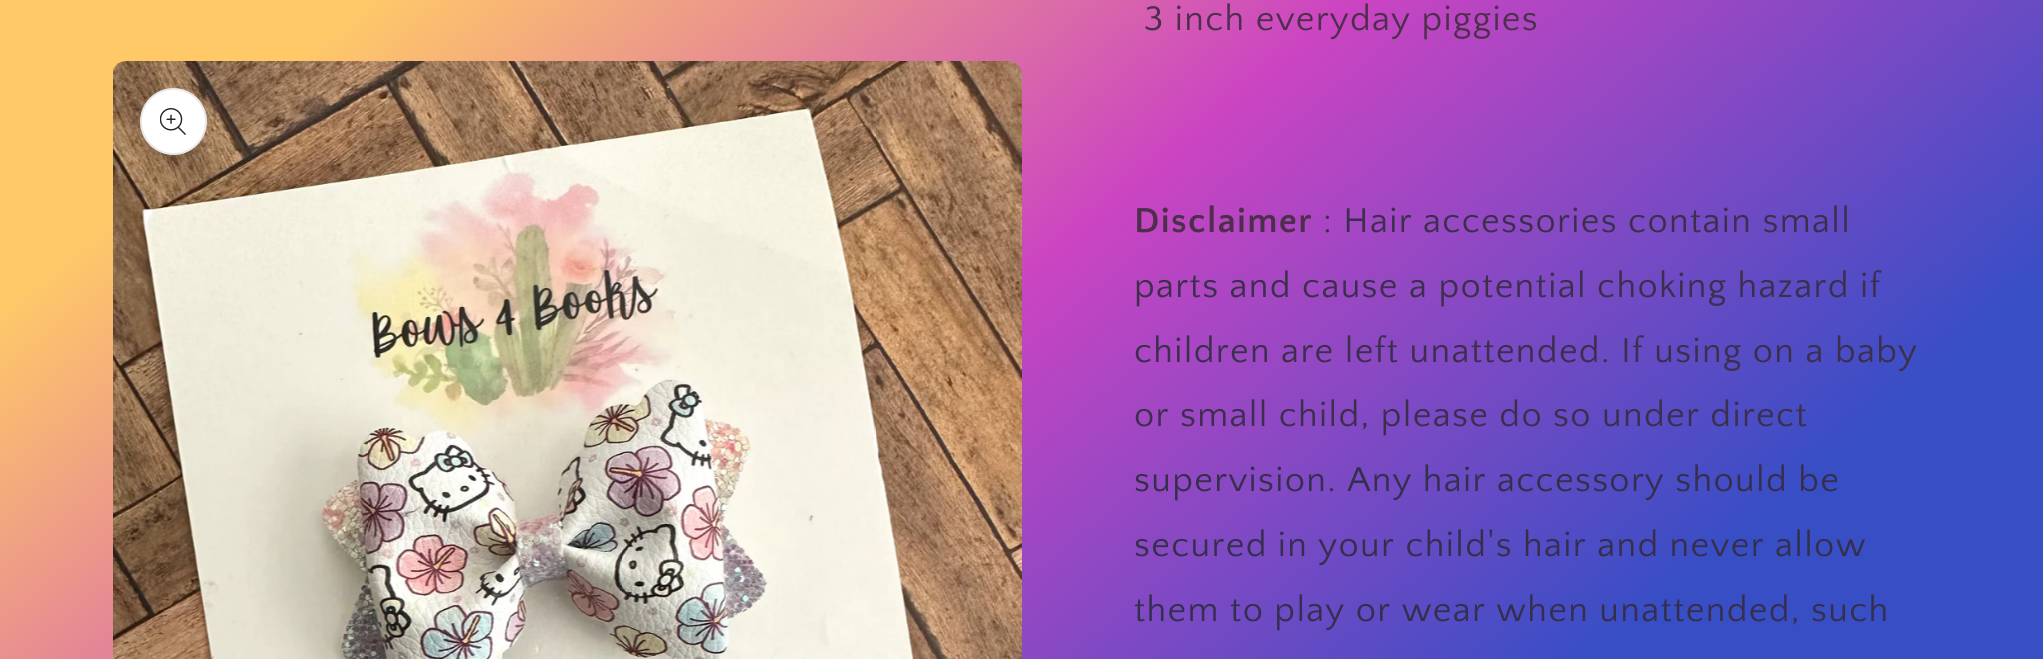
#include <cairo.h>
#include <math.h>
#include <stddef.h>


static void rgb(cairo_t *cr, int r, int g, int b)
{
	cairo_set_source_rgb(cr, r / 255.0, g / 255.0, b / 255.0);
}

static void face(cairo_t *cr, const char *family, double size, int italic, int bold)
{
	cairo_select_font_face(cr, family, italic ? CAIRO_FONT_SLANT_ITALIC : CAIRO_FONT_SLANT_NORMAL,
		bold ? CAIRO_FONT_WEIGHT_BOLD : CAIRO_FONT_WEIGHT_NORMAL);
	cairo_set_font_size(cr, size);
}

static void tracked(cairo_t *cr, double x, double y, const char *s, double letter, double word)
{
	cairo_move_to(cr, x, y);
	while (*s) {
		char ch[5] = {0};
		int n = 0;
		do ch[n++] = *s++; while ((*s & 0xC0) == 0x80);
		cairo_show_text(cr, ch);
		cairo_rel_move_to(cr, letter + word * (*ch == ' '), 0);
	}
}

static void rect(cairo_t *cr, double x, double y, double w, double h)
{
	cairo_rectangle(cr, x, y, w, h);
	cairo_fill(cr);
}

static void image(cairo_t *cr, const char *path, double x, double y, double w, double h)
{
	cairo_surface_t *image = cairo_image_surface_create_from_png(path);
	cairo_save(cr);
	cairo_set_source_surface(cr, image, x, y);
	cairo_rectangle(cr, x, y, w, h);
	cairo_fill(cr);
	cairo_restore(cr);
	cairo_surface_destroy(image);
}

static void draw(cairo_t *cr) {
	cairo_pattern_t *gradient;
	rgb(cr, 255, 255, 255);
	cairo_paint(cr);
	gradient = cairo_pattern_create_linear(1606, 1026, 437, -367);
	cairo_pattern_add_color_stop_rgba(gradient, 0.16, 0.22, 0.306, 0.773, 1);
	cairo_pattern_add_color_stop_rgba(gradient, 0.52, 0.796, 0.267, 0.761, 1);
	cairo_pattern_add_color_stop_rgba(gradient, 0.87, 1, 0.788, 0.408, 1);
	cairo_set_source(cr, gradient);
	cairo_pattern_destroy(gradient);
	rect(cr, 0, 0, 2043, 659);
	image(cr, "image0.png", 113, 61, 909, 598);
	rgb(cr, 255, 255, 255);
	cairo_arc(cr, 173.5, 121.5, 33.5, 0, 2 * M_PI);
	cairo_fill(cr);
	cairo_arc(cr, 173.5, 121.5, 32.5, 0, 2 * M_PI);
	cairo_set_source_rgba(cr, 0.145, 0.145, 0.145, 0.1);
	cairo_stroke(cr);
	image(cr, "image1.png", 160, 108, 26, 27);
	face(cr, "Quattrocento Sans", 36, 0, 0);
	rgb(cr, 77, 46, 75);
	tracked(cr, 1144, 30, "3 inch everyday piggies", 1.35, 0);
	face(cr, "Quattrocento Sans", 36, 0, 1);
	tracked(cr, 1134, 232, "Disclaimer", 1.35, 0);
	face(cr, "Quattrocento Sans", 36, 0, 0);
	rgb(cr, 60, 46, 77);
	tracked(cr, 1323, 232, ": Hair accessories contain small", 1.35, 0);
	tracked(cr, 1134, 297, "parts and cause a potential choking hazard if", 1.35, 0);
	tracked(cr, 1134, 362, "children are left unattended. If using on a baby", 1.35, 0);
	tracked(cr, 1134, 426, "or small child, please do so under direct", 1.35, 0);
	rgb(cr, 53, 46, 77);
	tracked(cr, 1134, 491, "supervision. Any hair accessory should be", 1.35, 0);
	tracked(cr, 1134, 556, "secured in your child's hair and never allow", 1.35, 0);
	tracked(cr, 1134, 621, "them to play or wear when unattended, such", 1.35, 0);
}

int main(void) {
	cairo_surface_t *surface = cairo_image_surface_create(CAIRO_FORMAT_RGB24, 2043, 659);
	cairo_t *cr = cairo_create(surface);
	cairo_font_options_t *options = cairo_font_options_create();
	cairo_font_options_set_hint_metrics(options, CAIRO_HINT_METRICS_OFF);
	cairo_font_options_set_hint_style(options, CAIRO_HINT_STYLE_NONE);
	cairo_set_font_options(cr, options);
	cairo_set_miter_limit(cr, 4);
	draw(cr);
	cairo_surface_write_to_png(surface, "render.png");
	cairo_font_options_destroy(options);
	cairo_destroy(cr);
	cairo_surface_destroy(surface);
	return 0;
}
